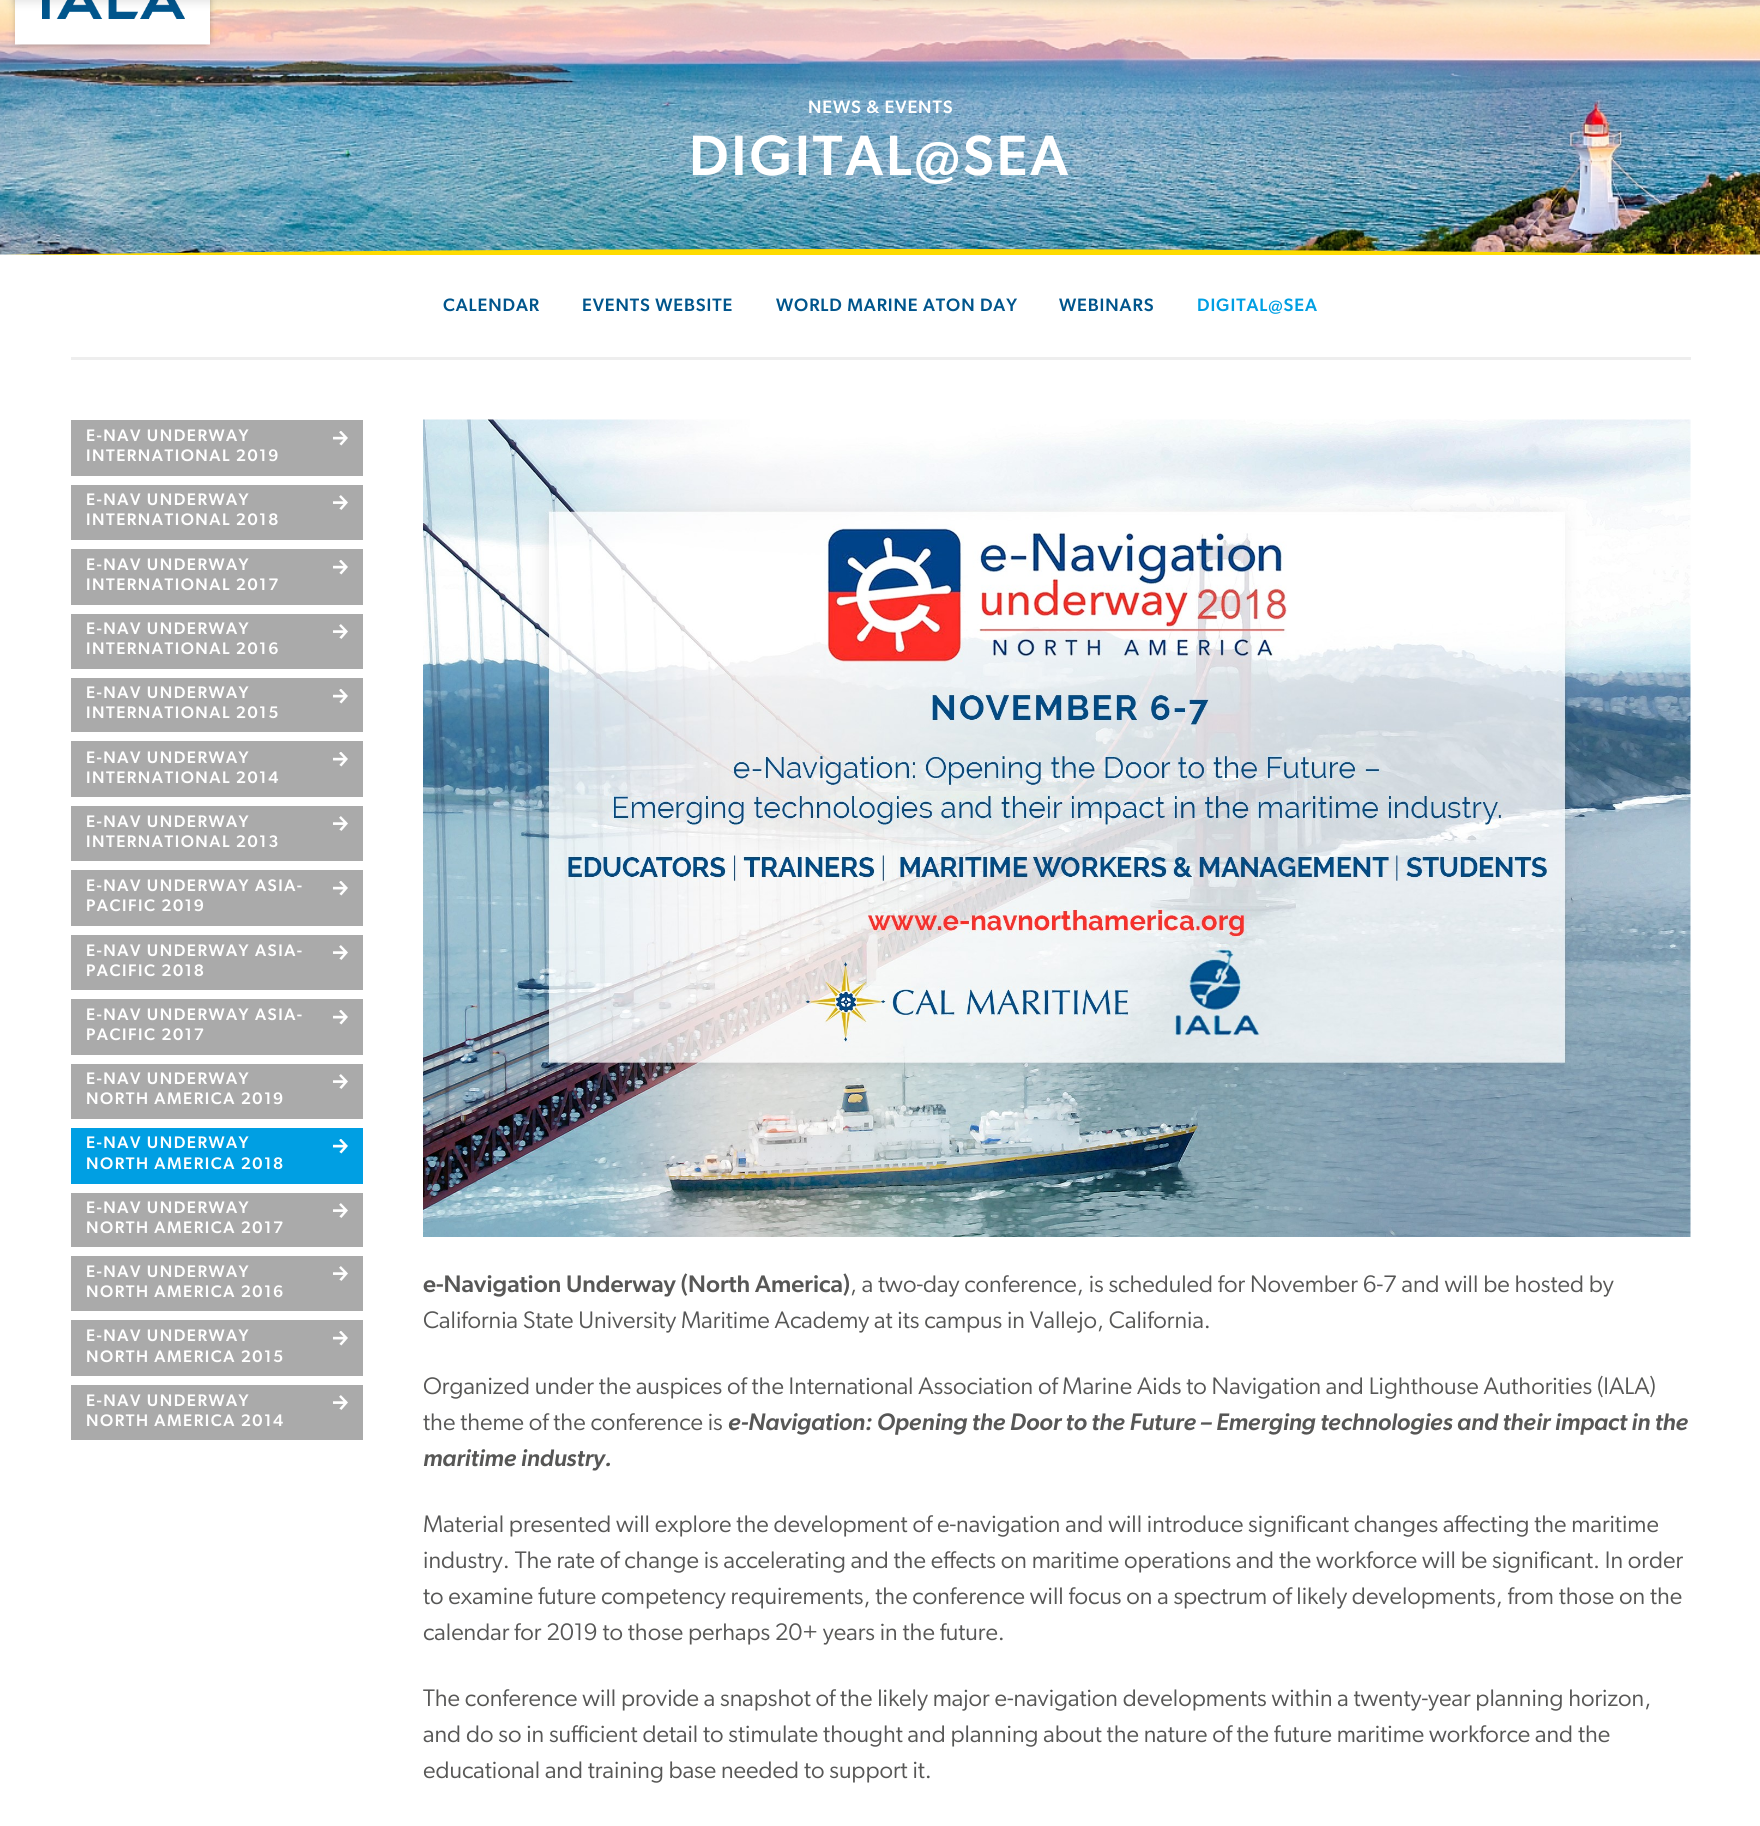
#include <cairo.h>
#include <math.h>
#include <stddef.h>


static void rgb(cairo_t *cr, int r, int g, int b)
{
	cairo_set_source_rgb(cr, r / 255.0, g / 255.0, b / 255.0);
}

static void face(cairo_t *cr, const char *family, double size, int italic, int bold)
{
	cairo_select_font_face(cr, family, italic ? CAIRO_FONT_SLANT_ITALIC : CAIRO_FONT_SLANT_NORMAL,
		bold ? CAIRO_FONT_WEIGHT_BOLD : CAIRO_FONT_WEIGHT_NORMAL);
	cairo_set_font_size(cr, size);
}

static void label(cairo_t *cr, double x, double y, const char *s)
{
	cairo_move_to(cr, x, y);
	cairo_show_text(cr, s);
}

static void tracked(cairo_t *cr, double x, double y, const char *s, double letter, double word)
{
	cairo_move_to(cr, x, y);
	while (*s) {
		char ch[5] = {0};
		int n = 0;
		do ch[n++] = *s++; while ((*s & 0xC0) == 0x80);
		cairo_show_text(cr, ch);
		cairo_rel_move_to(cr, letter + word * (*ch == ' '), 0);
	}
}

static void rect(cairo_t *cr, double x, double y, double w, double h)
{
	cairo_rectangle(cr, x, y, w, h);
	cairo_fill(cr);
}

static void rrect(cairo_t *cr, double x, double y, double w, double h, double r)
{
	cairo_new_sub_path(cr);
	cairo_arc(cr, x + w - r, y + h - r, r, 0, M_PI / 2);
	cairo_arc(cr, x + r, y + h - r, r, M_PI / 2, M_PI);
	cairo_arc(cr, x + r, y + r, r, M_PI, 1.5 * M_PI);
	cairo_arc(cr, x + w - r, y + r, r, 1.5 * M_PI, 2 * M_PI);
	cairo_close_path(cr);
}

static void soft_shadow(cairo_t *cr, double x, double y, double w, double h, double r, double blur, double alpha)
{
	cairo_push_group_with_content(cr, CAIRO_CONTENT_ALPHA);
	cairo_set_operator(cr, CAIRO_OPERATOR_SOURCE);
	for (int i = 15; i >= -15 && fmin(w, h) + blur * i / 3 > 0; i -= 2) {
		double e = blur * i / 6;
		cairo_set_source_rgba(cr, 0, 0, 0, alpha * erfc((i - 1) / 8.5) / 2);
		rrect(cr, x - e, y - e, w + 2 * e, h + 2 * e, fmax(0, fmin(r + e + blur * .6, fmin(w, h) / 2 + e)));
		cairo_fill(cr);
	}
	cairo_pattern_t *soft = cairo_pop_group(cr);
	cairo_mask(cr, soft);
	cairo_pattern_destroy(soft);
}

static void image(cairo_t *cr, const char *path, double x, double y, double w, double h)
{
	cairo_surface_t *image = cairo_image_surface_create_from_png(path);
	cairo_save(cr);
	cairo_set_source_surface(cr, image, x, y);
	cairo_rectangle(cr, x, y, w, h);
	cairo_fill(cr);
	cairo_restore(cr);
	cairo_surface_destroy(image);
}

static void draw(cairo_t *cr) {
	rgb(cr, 255, 255, 255);
	cairo_paint(cr);
	image(cr, "image0.png", 0, 0, 1760, 255);
	rgb(cr, 0, 0, 0);
	soft_shadow(cr, 20, -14, 186, 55, 0, 4.5, 0.8);
	image(cr, "image1.png", 15, 0, 195, 45);
	soft_shadow(cr, 12, -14, 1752, 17, 0, 4.5, 0.1);
	face(cr, "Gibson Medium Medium", 18, 0, 0);
	rgb(cr, 255, 255, 255);
	tracked(cr, 808, 113, "NEWS & EVENTS", 0.9, 0);
	face(cr, "Gibson Medium Medium", 57, 0, 0);
	tracked(cr, 689, 175, "DIGITAL@SEA", 2.8, 0);
	rgb(cr, 254, 219, 0);
	cairo_set_fill_rule(cr, CAIRO_FILL_RULE_EVEN_ODD);
	cairo_new_path(cr);
	cairo_move_to(cr, 1, 255);
	cairo_curve_to(cr, 587, 247, 1174, 247, 1760, 255);
	cairo_close_path(cr);
	cairo_fill(cr);
	rgb(cr, 238, 238, 238);
	rect(cr, 71, 357, 1620, 3);
	face(cr, "Gibson Medium Medium", 18, 0, 0);
	rgb(cr, 0, 85, 140);
	tracked(cr, 443, 311, "CALENDAR", 0.9, 0);
	tracked(cr, 582, 311, "EVENTS WEBSITE", 0.9, 0);
	tracked(cr, 776, 311, "WORLD MARINE ATON DAY", 0.9, 0);
	tracked(cr, 1059, 311, "WEBINARS", 0.9, 0);
	rgb(cr, 0, 159, 227);
	tracked(cr, 1197, 311, "DIGITAL@SEA", 0.9, 0);
	rgb(cr, 170, 170, 170);
	rect(cr, 71, 420, 292, 56);
	face(cr, "Gibson Medium Medium", 16.75, 0, 0);
	rgb(cr, 255, 255, 255);
	tracked(cr, 86, 441, "E-NAV UNDERWAY", 1.5, 0);
	image(cr, "image2.png", 333, 431, 15, 15);
	tracked(cr, 86, 461, "INTERNATIONAL 2019", 1.5, 0);
	rgb(cr, 170, 170, 170);
	rect(cr, 71, 485, 292, 55);
	rgb(cr, 255, 255, 255);
	tracked(cr, 86, 505, "E-NAV UNDERWAY", 1.5, 0);
	image(cr, "image3.png", 333, 495, 15, 15);
	tracked(cr, 86, 525, "INTERNATIONAL 2018", 1.5, 0);
	rgb(cr, 170, 170, 170);
	rect(cr, 71, 549, 292, 56);
	rgb(cr, 255, 255, 255);
	tracked(cr, 86, 570, "E-NAV UNDERWAY", 1.5, 0);
	image(cr, "image2.png", 333, 560, 15, 15);
	tracked(cr, 86, 590, "INTERNATIONAL 2017", 1.5, 0);
	rgb(cr, 170, 170, 170);
	rect(cr, 71, 614, 292, 55);
	rgb(cr, 255, 255, 255);
	tracked(cr, 86, 634, "E-NAV UNDERWAY", 1.5, 0);
	image(cr, "image3.png", 333, 624, 15, 15);
	tracked(cr, 86, 654, "INTERNATIONAL 2016", 1.5, 0);
	rgb(cr, 170, 170, 170);
	rect(cr, 71, 678, 292, 54);
	rgb(cr, 255, 255, 255);
	tracked(cr, 86, 698, "E-NAV UNDERWAY", 1.5, 0);
	image(cr, "image2.png", 333, 689, 15, 15);
	tracked(cr, 86, 718, "INTERNATIONAL 2015", 1.5, 0);
	rgb(cr, 170, 170, 170);
	rect(cr, 71, 741, 292, 56);
	rgb(cr, 255, 255, 255);
	tracked(cr, 86, 763, "E-NAV UNDERWAY", 1.5, 0);
	image(cr, "image2.png", 333, 752, 15, 15);
	tracked(cr, 86, 783, "INTERNATIONAL 2014", 1.5, 0);
	rgb(cr, 170, 170, 170);
	rect(cr, 71, 806, 292, 55);
	rgb(cr, 255, 255, 255);
	tracked(cr, 86, 827, "E-NAV UNDERWAY", 1.5, 0);
	image(cr, "image3.png", 333, 816, 15, 15);
	tracked(cr, 86, 847, "INTERNATIONAL 2013", 1.5, 0);
	rgb(cr, 170, 170, 170);
	rect(cr, 71, 870, 292, 56);
	rgb(cr, 255, 255, 255);
	tracked(cr, 86, 891, "E-NAV UNDERWAY ASIA-", 1.5, 0);
	image(cr, "image2.png", 333, 881, 15, 15);
	tracked(cr, 86, 911, "PACIFIC 2019", 1.5, 0);
	rgb(cr, 170, 170, 170);
	rect(cr, 71, 935, 292, 55);
	rgb(cr, 255, 255, 255);
	tracked(cr, 86, 956, "E-NAV UNDERWAY ASIA-", 1.5, 0);
	image(cr, "image3.png", 333, 945, 15, 15);
	tracked(cr, 86, 976, "PACIFIC 2018", 1.5, 0);
	rgb(cr, 170, 170, 170);
	rect(cr, 71, 999, 292, 56);
	rgb(cr, 255, 255, 255);
	tracked(cr, 86, 1020, "E-NAV UNDERWAY ASIA-", 1.5, 0);
	image(cr, "image2.png", 333, 1010, 15, 15);
	tracked(cr, 86, 1040, "PACIFIC 2017", 1.5, 0);
	rgb(cr, 170, 170, 170);
	rect(cr, 71, 1064, 292, 55);
	rgb(cr, 255, 255, 255);
	tracked(cr, 86, 1084, "E-NAV UNDERWAY", 1.5, 0);
	image(cr, "image3.png", 333, 1074, 15, 15);
	tracked(cr, 86, 1104, "NORTH AMERICA 2019", 1.5, 0);
	rgb(cr, 0, 159, 227);
	rect(cr, 71, 1128, 292, 56);
	rgb(cr, 255, 255, 255);
	tracked(cr, 86, 1148, "E-NAV UNDERWAY", 1.5, 0);
	image(cr, "image4.png", 333, 1139, 15, 15);
	tracked(cr, 86, 1169, "NORTH AMERICA 2018", 1.5, 0);
	rgb(cr, 170, 170, 170);
	rect(cr, 71, 1193, 292, 54);
	rgb(cr, 255, 255, 255);
	tracked(cr, 86, 1213, "E-NAV UNDERWAY", 1.5, 0);
	image(cr, "image3.png", 333, 1203, 15, 15);
	tracked(cr, 86, 1233, "NORTH AMERICA 2017", 1.5, 0);
	rgb(cr, 170, 170, 170);
	rect(cr, 71, 1256, 292, 55);
	rgb(cr, 255, 255, 255);
	tracked(cr, 86, 1277, "E-NAV UNDERWAY", 1.5, 0);
	image(cr, "image3.png", 333, 1266, 15, 15);
	tracked(cr, 86, 1297, "NORTH AMERICA 2016", 1.5, 0);
	rgb(cr, 170, 170, 170);
	rect(cr, 71, 1320, 292, 56);
	rgb(cr, 255, 255, 255);
	tracked(cr, 86, 1341, "E-NAV UNDERWAY", 1.5, 0);
	image(cr, "image2.png", 333, 1331, 15, 15);
	tracked(cr, 86, 1362, "NORTH AMERICA 2015", 1.5, 0);
	rgb(cr, 170, 170, 170);
	rect(cr, 71, 1385, 292, 55);
	rgb(cr, 255, 255, 255);
	tracked(cr, 86, 1406, "E-NAV UNDERWAY", 1.5, 0);
	image(cr, "image3.png", 333, 1395, 15, 15);
	tracked(cr, 86, 1426, "NORTH AMERICA 2014", 1.5, 0);
	image(cr, "image5.png", 423, 419, 1268, 818);
	face(cr, "Gibson Medium Medium", 24, 0, 0);
	rgb(cr, 87, 87, 86);
	label(cr, 423, 1292, "e-Navigation Underway (North America)");
	face(cr, "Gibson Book", 24, 0, 0);
	label(cr, 850, 1292, ", a two-day conference, is scheduled for November 6-7 and will be hosted by");
	label(cr, 423, 1328, "California State University Maritime Academy at its campus in Vallejo, California.");
	label(cr, 423, 1394, "Organized under the auspices of the International Association of Marine Aids to Navigation and Lighthouse Authorities (IALA)");
	label(cr, 423, 1430, "the theme of the conference is");
	face(cr, "Gibson Medium Medium", 24, 1, 0);
	label(cr, 728, 1430, "e-Navigation: Opening the Door to the Future – Emerging technologies and their impact in the");
	label(cr, 423, 1466, "maritime industry.");
	face(cr, "Gibson Book", 24, 0, 0);
	label(cr, 423, 1532, "Material presented will explore the development of e-navigation and will introduce significant changes affecting the maritime");
	label(cr, 423, 1568, "industry. The rate of change is accelerating and the effects on maritime operations and the workforce will be significant. In order");
	label(cr, 423, 1604, "to examine future competency requirements, the conference will focus on a spectrum of likely developments, from those on the");
	label(cr, 423, 1640, "calendar for 2019 to those perhaps 20+ years in the future.");
	label(cr, 423, 1706, "The conference will provide a snapshot of the likely major e-navigation developments within a twenty-year planning horizon,");
	label(cr, 423, 1742, "and do so in sufficient detail to stimulate thought and planning about the nature of the future maritime workforce and the");
	label(cr, 423, 1778, "educational and training base needed to support it.");
}

int main(void) {
	cairo_surface_t *surface = cairo_image_surface_create(CAIRO_FORMAT_RGB24, 1760, 1826);
	cairo_t *cr = cairo_create(surface);
	cairo_font_options_t *options = cairo_font_options_create();
	cairo_font_options_set_hint_metrics(options, CAIRO_HINT_METRICS_OFF);
	cairo_font_options_set_hint_style(options, CAIRO_HINT_STYLE_NONE);
	cairo_set_font_options(cr, options);
	cairo_set_miter_limit(cr, 4);
	draw(cr);
	cairo_surface_write_to_png(surface, "render.png");
	cairo_font_options_destroy(options);
	cairo_destroy(cr);
	cairo_surface_destroy(surface);
	return 0;
}
